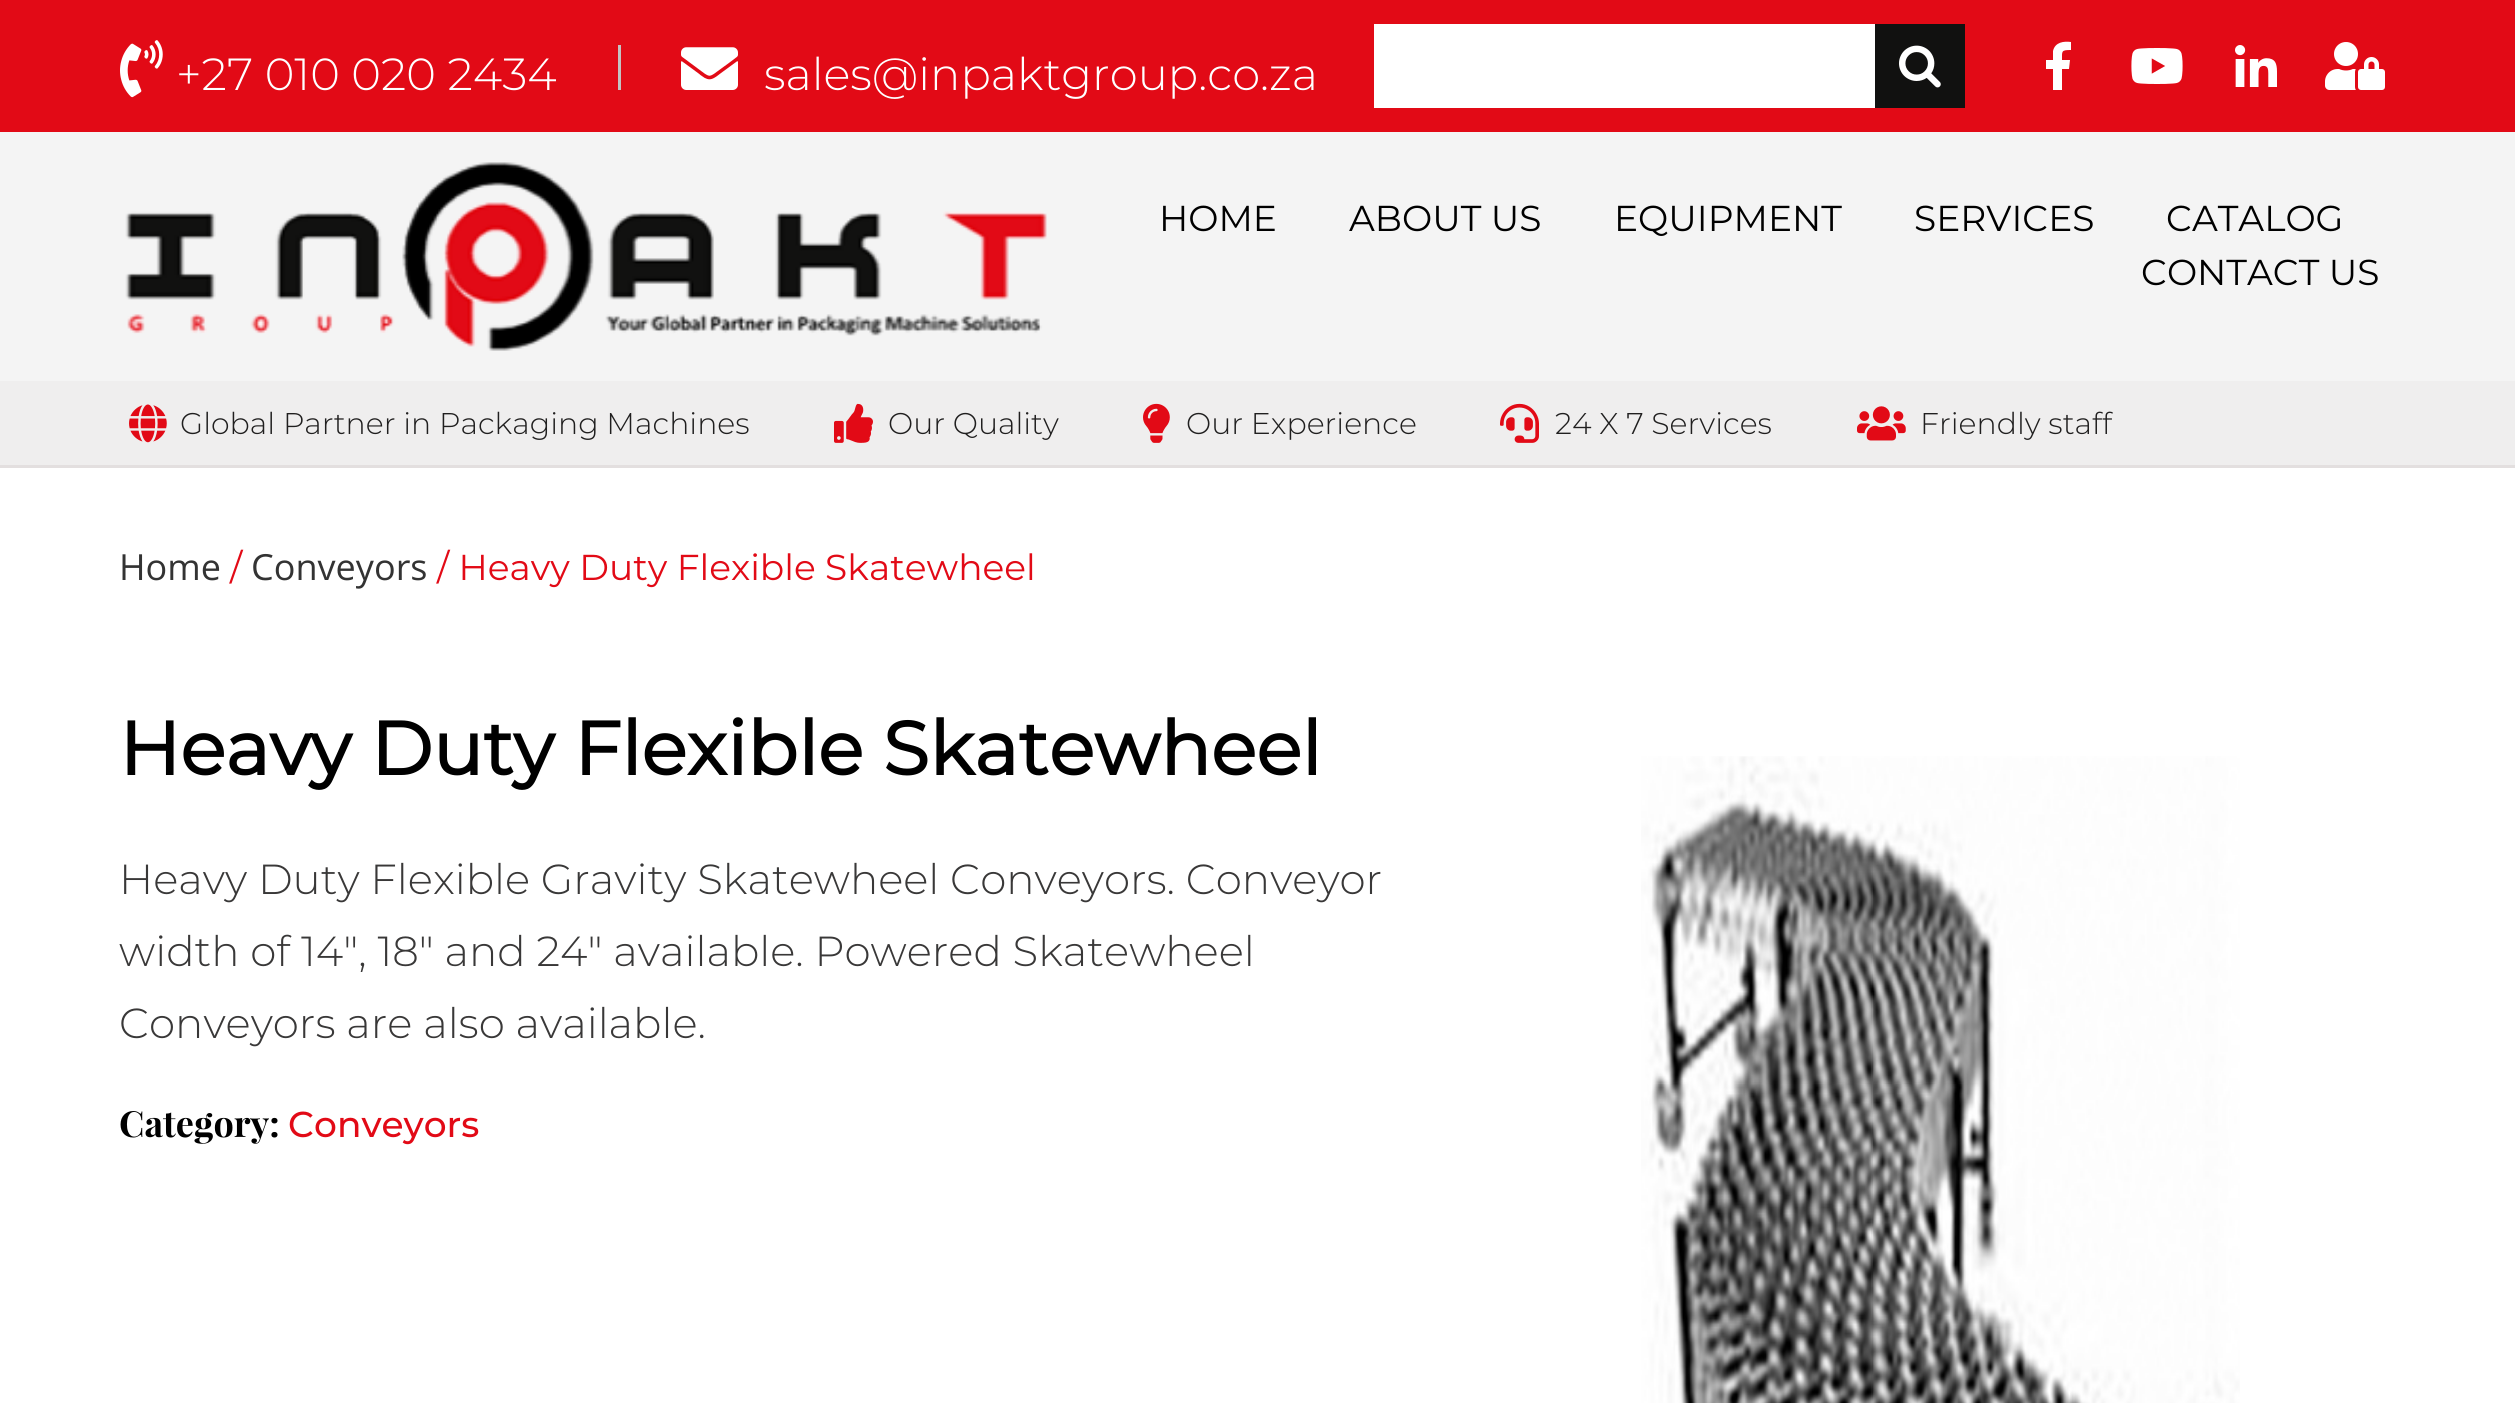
#include <cairo.h>
#include <math.h>
#include <stddef.h>


static void rgb(cairo_t *cr, int r, int g, int b)
{
	cairo_set_source_rgb(cr, r / 255.0, g / 255.0, b / 255.0);
}

static void face(cairo_t *cr, const char *family, double size, int italic, int bold)
{
	cairo_select_font_face(cr, family, italic ? CAIRO_FONT_SLANT_ITALIC : CAIRO_FONT_SLANT_NORMAL,
		bold ? CAIRO_FONT_WEIGHT_BOLD : CAIRO_FONT_WEIGHT_NORMAL);
	cairo_set_font_size(cr, size);
}

static void label(cairo_t *cr, double x, double y, const char *s)
{
	cairo_move_to(cr, x, y);
	cairo_show_text(cr, s);
}

static void rect(cairo_t *cr, double x, double y, double w, double h)
{
	cairo_rectangle(cr, x, y, w, h);
	cairo_fill(cr);
}

static void image(cairo_t *cr, const char *path, double x, double y, double w, double h)
{
	cairo_surface_t *image = cairo_image_surface_create_from_png(path);
	cairo_save(cr);
	cairo_set_source_surface(cr, image, x, y);
	cairo_rectangle(cr, x, y, w, h);
	cairo_fill(cr);
	cairo_restore(cr);
	cairo_surface_destroy(image);
}

static void draw(cairo_t *cr) {
	rgb(cr, 255, 255, 255);
	cairo_paint(cr);
	rgb(cr, 226, 10, 22);
	rect(cr, 0, 0, 2515, 132);
	image(cr, "image0.png", 120, 40, 43, 58);
	face(cr, "Montserrat Light", 45, 0, 0);
	rgb(cr, 255, 255, 255);
	label(cr, 176, 90, "+27 010 020 2434");
	rgb(cr, 195, 195, 195);
	rect(cr, 618, 45, 3, 45);
	image(cr, "image1.png", 681, 47, 57, 43);
	rgb(cr, 255, 255, 255);
	label(cr, 764, 90, "sales@inpaktgroup.co.za");
	rect(cr, 1374, 24, 501, 84);
	rgb(cr, 17, 17, 16);
	rect(cr, 1875, 24, 90, 84);
	image(cr, "image2.png", 1899, 45, 42, 43);
	rgb(cr, 255, 255, 255);
	cairo_new_path(cr);
	cairo_move_to(cr, 2053, 90);
	cairo_line_to(cr, 2053, 69);
	cairo_line_to(cr, 2046, 69);
	cairo_line_to(cr, 2046, 60);
	cairo_line_to(cr, 2053, 60);
	cairo_line_to(cr, 2053, 51);
	cairo_curve_to(cr, 2055, 42, 2064, 41, 2071, 42);
	cairo_line_to(cr, 2071, 50);
	cairo_curve_to(cr, 2061, 50, 2062, 51, 2062, 60);
	cairo_line_to(cr, 2070, 60);
	cairo_line_to(cr, 2069, 69);
	cairo_line_to(cr, 2062, 69);
	cairo_line_to(cr, 2062, 90);
	cairo_close_path(cr);
	cairo_fill(cr);
	image(cr, "image3.png", 2131, 48, 52, 36);
	image(cr, "image4.png", 2235, 45, 42, 42);
	image(cr, "image5.png", 2325, 42, 60, 48);
	rgb(cr, 244, 244, 244);
	rect(cr, 0, 132, 2515, 249);
	image(cr, "image6.png", 125, 162, 922, 189);
	face(cr, "Montserrat", 36, 0, 0);
	rgb(cr, 0, 0, 0);
	label(cr, 1159, 231, "HOME");
	label(cr, 1349, 231, "ABOUT US");
	label(cr, 1614, 231, "EQUIPMENT");
	label(cr, 1914, 231, "SERVICES");
	label(cr, 2166, 231, "CATALOG");
	label(cr, 2141, 285, "CONTACT US");
	rgb(cr, 239, 238, 238);
	rect(cr, 0, 381, 2515, 84);
	rgb(cr, 227, 223, 223);
	rect(cr, 0, 465, 2515, 3);
	image(cr, "image7.png", 129, 404, 38, 39);
	face(cr, "Montserrat Light", 30, 0, 0);
	rgb(cr, 32, 31, 31);
	label(cr, 180, 434, "Global Partner in Packaging Machines");
	image(cr, "image8.png", 834, 403, 39, 40);
	label(cr, 888, 434, "Our Quality");
	image(cr, "image9.png", 1143, 403, 27, 40);
	label(cr, 1186, 434, "Our Experience");
	image(cr, "image10.png", 1500, 403, 39, 40);
	label(cr, 1555, 434, "24 X 7 Services");
	image(cr, "image11.png", 1857, 406, 49, 35);
	label(cr, 1920, 434, "Friendly staff");
	face(cr, "Open Sans", 36, 0, 0);
	rgb(cr, 51, 51, 51);
	label(cr, 119, 580, "Home");
	face(cr, "Montserrat", 36, 0, 0);
	rgb(cr, 226, 10, 22);
	label(cr, 230, 580, "/");
	face(cr, "Open Sans", 36, 0, 0);
	rgb(cr, 51, 51, 51);
	label(cr, 251, 580, "Conveyors");
	face(cr, "Montserrat", 36, 0, 0);
	rgb(cr, 226, 10, 22);
	label(cr, 437, 580, "/ Heavy Duty Flexible Skatewheel");
	face(cr, "Montserrat", 75, 0, 1);
	rgb(cr, 0, 0, 0);
	label(cr, 119, 775, "Heavy Duty Flexible Skatewheel");
	face(cr, "Montserrat Light", 42, 0, 0);
	rgb(cr, 57, 56, 56);
	label(cr, 119, 894, "Heavy Duty Flexible Gravity Skatewheel Conveyors. Conveyor");
	label(cr, 119, 966, "width of 14″, 18″ and 24″ available. Powered Skatewheel");
	label(cr, 119, 1038, "Conveyors are also available.");
	face(cr, "Playfair Display", 36, 0, 1);
	rgb(cr, 0, 0, 0);
	label(cr, 119, 1137, "Category:");
	face(cr, "Montserrat Medium", 36, 0, 0);
	rgb(cr, 226, 10, 22);
	label(cr, 288, 1137, "Conveyors");
	image(cr, "image12.png", 1641, 756, 599, 647);
}

int main(void) {
	cairo_surface_t *surface = cairo_image_surface_create(CAIRO_FORMAT_RGB24, 2515, 1403);
	cairo_t *cr = cairo_create(surface);
	cairo_font_options_t *options = cairo_font_options_create();
	cairo_font_options_set_hint_metrics(options, CAIRO_HINT_METRICS_OFF);
	cairo_font_options_set_hint_style(options, CAIRO_HINT_STYLE_NONE);
	cairo_set_font_options(cr, options);
	cairo_set_miter_limit(cr, 4);
	draw(cr);
	cairo_surface_write_to_png(surface, "render.png");
	cairo_font_options_destroy(options);
	cairo_destroy(cr);
	cairo_surface_destroy(surface);
	return 0;
}
